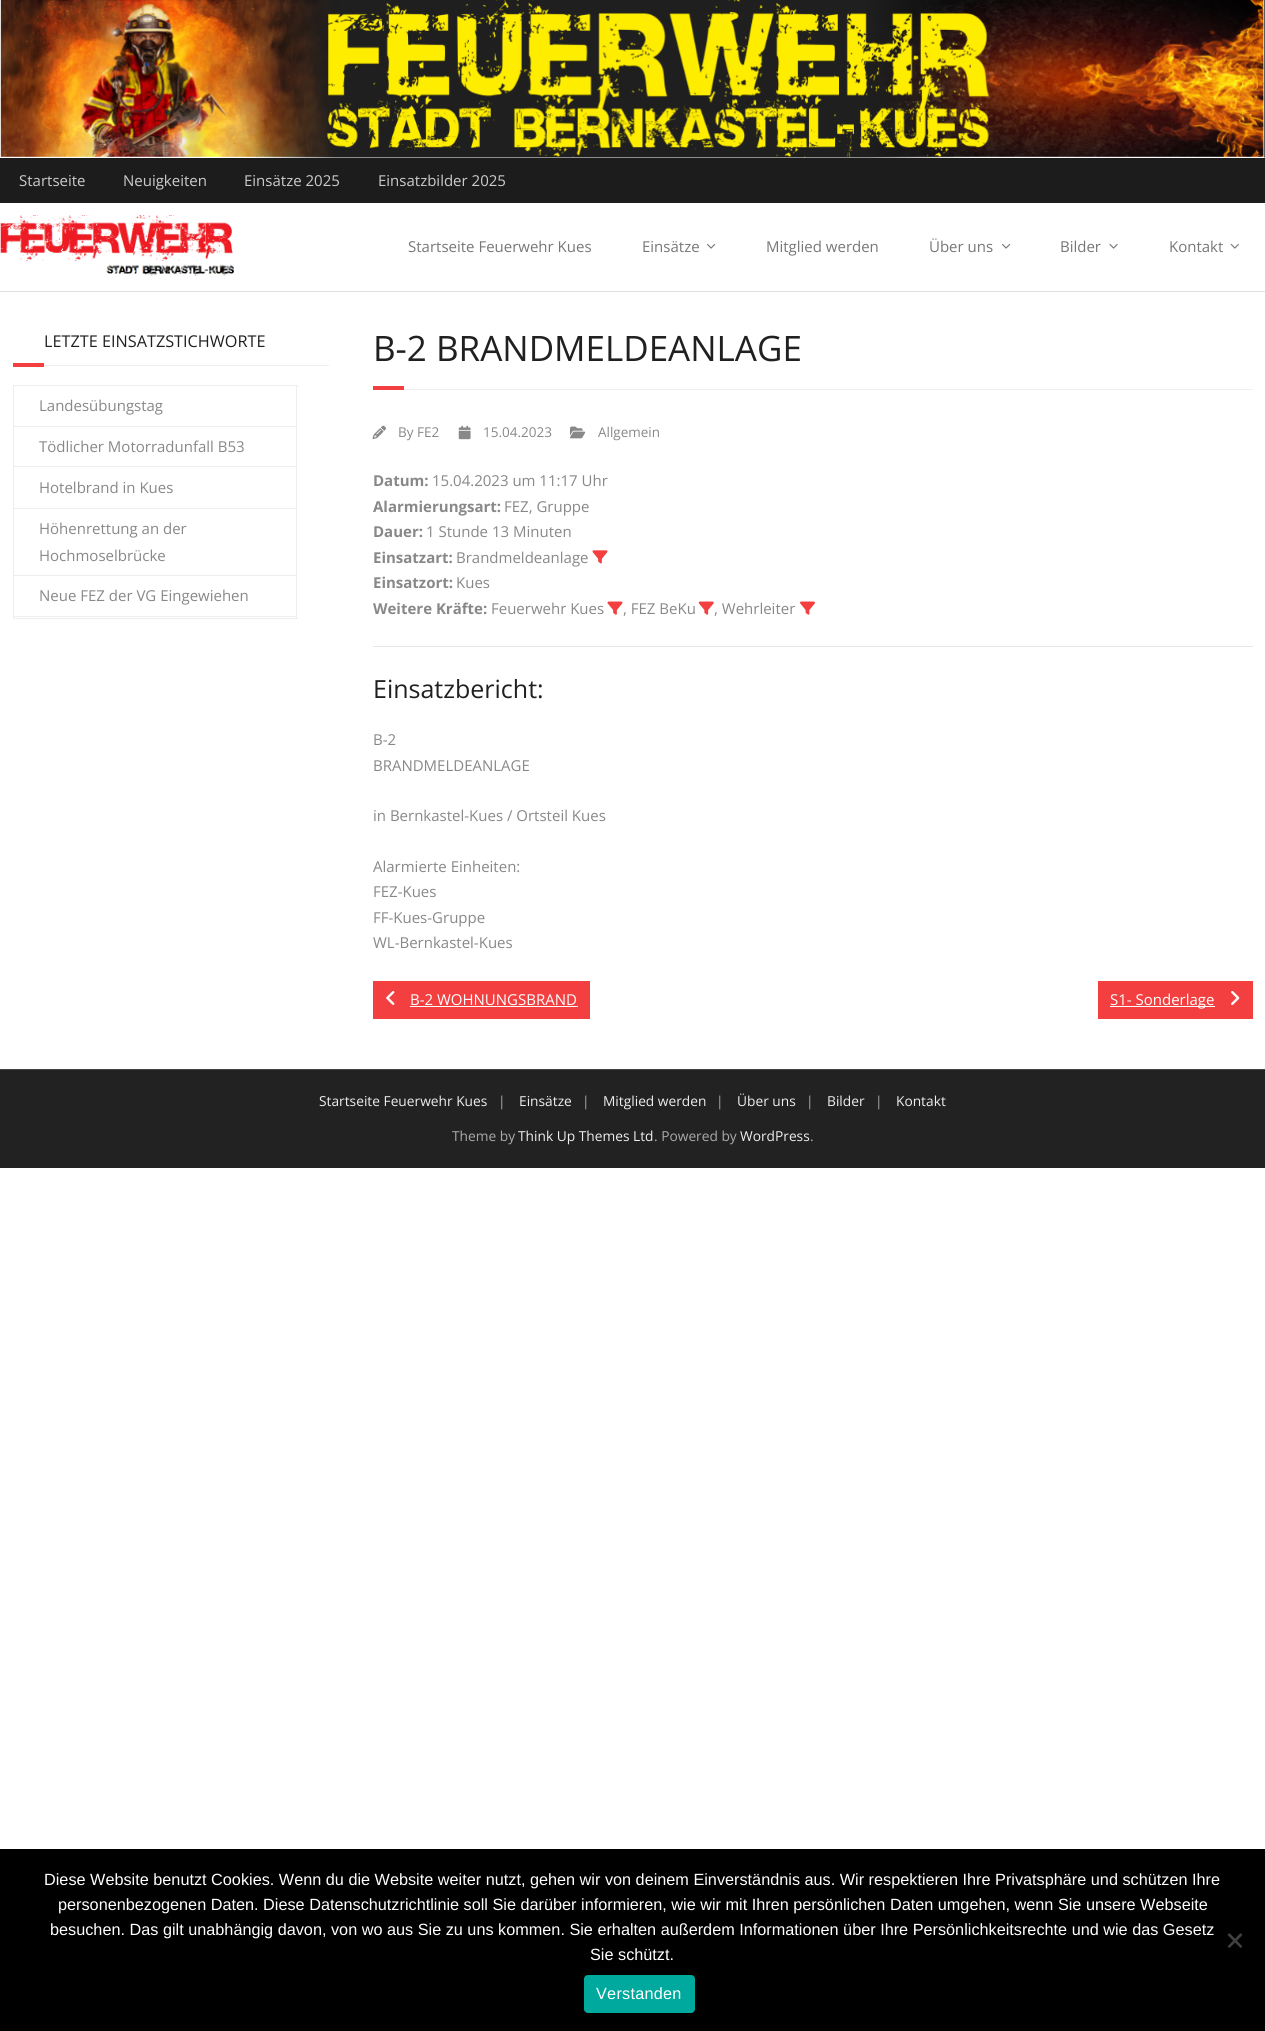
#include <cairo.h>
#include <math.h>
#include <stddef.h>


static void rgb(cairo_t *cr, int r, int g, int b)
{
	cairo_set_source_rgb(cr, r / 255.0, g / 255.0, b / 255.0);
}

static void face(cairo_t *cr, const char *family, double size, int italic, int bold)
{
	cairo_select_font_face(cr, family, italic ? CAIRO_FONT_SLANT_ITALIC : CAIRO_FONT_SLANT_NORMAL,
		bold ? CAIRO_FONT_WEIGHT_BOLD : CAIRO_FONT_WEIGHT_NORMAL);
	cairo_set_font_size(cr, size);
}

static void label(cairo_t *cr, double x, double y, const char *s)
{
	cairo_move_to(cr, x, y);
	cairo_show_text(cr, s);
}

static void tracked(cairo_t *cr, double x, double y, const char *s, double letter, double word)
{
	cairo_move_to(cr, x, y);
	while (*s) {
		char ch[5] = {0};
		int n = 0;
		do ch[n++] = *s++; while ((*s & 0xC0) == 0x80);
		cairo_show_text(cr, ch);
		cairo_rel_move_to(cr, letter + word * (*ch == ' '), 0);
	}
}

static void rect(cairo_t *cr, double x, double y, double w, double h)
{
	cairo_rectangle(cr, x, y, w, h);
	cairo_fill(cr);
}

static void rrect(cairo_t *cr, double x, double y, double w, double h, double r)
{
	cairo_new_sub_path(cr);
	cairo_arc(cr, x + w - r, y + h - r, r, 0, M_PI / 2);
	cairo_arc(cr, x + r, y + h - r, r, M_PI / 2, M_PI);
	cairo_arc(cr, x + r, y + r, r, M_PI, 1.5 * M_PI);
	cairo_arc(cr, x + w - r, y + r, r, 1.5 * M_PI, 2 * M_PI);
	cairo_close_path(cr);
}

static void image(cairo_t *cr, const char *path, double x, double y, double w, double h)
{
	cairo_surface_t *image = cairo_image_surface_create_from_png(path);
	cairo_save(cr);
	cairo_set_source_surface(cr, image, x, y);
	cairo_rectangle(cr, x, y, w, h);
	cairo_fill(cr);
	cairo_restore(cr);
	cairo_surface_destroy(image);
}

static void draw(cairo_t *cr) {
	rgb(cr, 255, 255, 255);
	cairo_paint(cr);
	image(cr, "image0.png", 0, 0, 1265, 158);
	rgb(cr, 28, 28, 28);
	rect(cr, 0, 158, 1265, 45);
	face(cr, "Open Sans", 15, 0, 0);
	rgb(cr, 204, 204, 204);
	label(cr, 19, 186, "Startseite");
	label(cr, 123, 186, "Neuigkeiten");
	label(cr, 244, 186, "Einsätze 2025");
	label(cr, 378, 186, "Einsatzbilder 2025");
	rgb(cr, 224, 224, 224);
	rect(cr, 0, 291, 1265, 1);
	image(cr, "image1.png", 0, 215, 235, 61);
	rgb(cr, 119, 119, 119);
	label(cr, 408, 252, "Startseite Feuerwehr Kues");
	label(cr, 642, 252, "Einsätze");
	image(cr, "image2.png", 707, 243, 9, 6);
	label(cr, 766, 252, "Mitglied werden");
	label(cr, 929, 252, "Über uns");
	image(cr, "image2.png", 1002, 243, 9, 6);
	label(cr, 1060, 252, "Bilder");
	image(cr, "image3.png", 1109, 243, 9, 6);
	label(cr, 1169, 252, "Kontakt");
	image(cr, "image4.png", 1230, 243, 9, 6);
	rgb(cr, 238, 238, 238);
	rect(cr, 13, 618, 285, 1);
	face(cr, "Open Sans", 16.25, 0, 0);
	rgb(cr, 32, 32, 32);
	label(cr, 44, 347, "LETZTE EINSATZSTICHWORTE");
	rgb(cr, 243, 63, 63);
	rect(cr, 13, 363, 31, 4);
	rgb(cr, 238, 238, 238);
	rect(cr, 44, 365, 285, 1);
	rect(cr, 13, 385, 285, 1);
	rect(cr, 296, 385, 1, 233);
	rect(cr, 13, 385, 1, 233);
	rect(cr, 14, 426, 282, 1);
	face(cr, "Open Sans", 15, 0, 0);
	rgb(cr, 136, 136, 136);
	label(cr, 39, 411, "Landesübungstag");
	rgb(cr, 238, 238, 238);
	rect(cr, 14, 466, 282, 1);
	rgb(cr, 136, 136, 136);
	label(cr, 39, 452, "Tödlicher Motorradunfall B53");
	rgb(cr, 238, 238, 238);
	rect(cr, 14, 508, 282, 1);
	rgb(cr, 136, 136, 136);
	label(cr, 39, 493, "Hotelbrand in Kues");
	rgb(cr, 238, 238, 238);
	rect(cr, 14, 575, 282, 1);
	rgb(cr, 136, 136, 136);
	label(cr, 39, 534, "Höhenrettung an der");
	label(cr, 39, 561, "Hochmoselbrücke");
	rgb(cr, 238, 238, 238);
	rect(cr, 14, 616, 282, 1);
	rgb(cr, 136, 136, 136);
	label(cr, 39, 601, "Neue FEZ der VG Eingewiehen");
	face(cr, "Open Sans", 35, 0, 0);
	rgb(cr, 32, 32, 32);
	label(cr, 373, 361, "B-2 BRANDMELDEANLAGE");
	rgb(cr, 243, 63, 63);
	rect(cr, 373, 386, 31, 4);
	rgb(cr, 238, 238, 238);
	rect(cr, 404, 389, 849, 1);
	image(cr, "image5.png", 372, 425, 14, 15);
	face(cr, "Open Sans", 13.5, 0, 0);
	rgb(cr, 136, 136, 136);
	label(cr, 398, 437, "By FE2");
	image(cr, "image6.png", 458, 425, 13, 15);
	label(cr, 483, 437, "15.04.2023");
	image(cr, "image7.png", 570, 426, 16, 13);
	label(cr, 598, 437, "Allgemein");
	face(cr, "Open Sans", 15, 0, 1);
	label(cr, 373, 486, "Datum:");
	face(cr, "Open Sans", 15, 0, 0);
	label(cr, 432, 486, "15.04.2023 um 11:17 Uhr");
	face(cr, "Open Sans", 15, 0, 1);
	label(cr, 373, 512, "Alarmierungsart:");
	face(cr, "Open Sans", 15, 0, 0);
	label(cr, 504, 512, "FEZ, Gruppe");
	face(cr, "Open Sans", 15, 0, 1);
	label(cr, 373, 537, "Dauer:");
	face(cr, "Open Sans", 15, 0, 0);
	label(cr, 426, 537, "1 Stunde 13 Minuten");
	face(cr, "Open Sans", 15, 0, 1);
	label(cr, 373, 563, "Einsatzart:");
	face(cr, "Open Sans", 15, 0, 0);
	label(cr, 456, 563, "Brandmeldeanlage");
	image(cr, "image8.png", 592, 550, 16, 14);
	face(cr, "Open Sans", 15, 0, 1);
	label(cr, 373, 588, "Einsatzort:");
	face(cr, "Open Sans", 15, 0, 0);
	label(cr, 456, 588, "Kues");
	face(cr, "Open Sans", 15, 0, 1);
	label(cr, 373, 614, "Weitere Kräfte:");
	face(cr, "Open Sans", 15, 0, 0);
	label(cr, 491, 614, "Feuerwehr Kues");
	image(cr, "image9.png", 607, 601, 16, 14);
	label(cr, 623, 614, ", FEZ BeKu");
	image(cr, "image10.png", 698, 601, 16, 14);
	label(cr, 714, 614, ", Wehrleiter");
	image(cr, "image11.png", 800, 601, 15, 14);
	rgb(cr, 230, 230, 230);
	rect(cr, 373, 646, 880, 1);
	face(cr, "Open Sans", 25, 0, 0);
	rgb(cr, 32, 32, 32);
	label(cr, 373, 698, "Einsatzbericht:");
	face(cr, "Open Sans", 15, 0, 0);
	rgb(cr, 136, 136, 136);
	label(cr, 373, 745, "B-2");
	label(cr, 373, 771, "BRANDMELDEANLAGE");
	label(cr, 373, 821, "in Bernkastel-Kues / Ortsteil Kues");
	label(cr, 373, 872, "Alarmierte Einheiten:");
	label(cr, 373, 897, "FEZ-Kues");
	label(cr, 373, 923, "FF-Kues-Gruppe");
	label(cr, 373, 948, "WL-Bernkastel-Kues");
	rgb(cr, 243, 63, 63);
	rect(cr, 373, 981, 217, 38);
	image(cr, "image12.png", 386, 991, 9, 14);
	rgb(cr, 255, 255, 255);
	label(cr, 410, 1005, "B-2 WOHNUNGSBRAND");
	rect(cr, 410, 1006, 168, 1);
	rgb(cr, 243, 63, 63);
	rect(cr, 1098, 981, 155, 38);
	rgb(cr, 255, 255, 255);
	rect(cr, 1110, 1006, 105, 1);
	label(cr, 1110, 1005, "S1- Sonderlage");
	image(cr, "image13.png", 1231, 991, 9, 14);
	rgb(cr, 34, 34, 34);
	rect(cr, 0, 1070, 1265, 98);
	rgb(cr, 68, 68, 68);
	rect(cr, 0, 1069, 1265, 1);
	face(cr, "Open Sans", 13.75, 0, 0);
	rgb(cr, 238, 238, 238);
	label(cr, 319, 1106, "Startseite Feuerwehr Kues");
	rgb(cr, 170, 170, 170);
	label(cr, 498, 1106, "|");
	rgb(cr, 238, 238, 238);
	label(cr, 519, 1106, "Einsätze");
	rgb(cr, 170, 170, 170);
	label(cr, 582, 1106, "|");
	rgb(cr, 238, 238, 238);
	label(cr, 603, 1106, "Mitglied werden");
	rgb(cr, 170, 170, 170);
	label(cr, 716, 1106, "|");
	rgb(cr, 238, 238, 238);
	label(cr, 737, 1106, "Über uns");
	rgb(cr, 170, 170, 170);
	label(cr, 806, 1106, "|");
	rgb(cr, 238, 238, 238);
	label(cr, 827, 1106, "Bilder");
	rgb(cr, 170, 170, 170);
	label(cr, 875, 1106, "|");
	rgb(cr, 238, 238, 238);
	label(cr, 896, 1106, "Kontakt");
	rgb(cr, 170, 170, 170);
	label(cr, 452, 1141, "Theme by");
	rgb(cr, 238, 238, 238);
	label(cr, 518, 1141, "Think Up Themes Ltd");
	rgb(cr, 170, 170, 170);
	label(cr, 654, 1141, ". Powered by");
	rgb(cr, 238, 238, 238);
	label(cr, 740, 1141, "WordPress");
	rgb(cr, 170, 170, 170);
	label(cr, 810, 1141, ".");
	rgb(cr, 0, 0, 0);
	rect(cr, 0, 1849, 1265, 182);
	face(cr, "Liberation Sans", 16.25, 0, 0);
	rgb(cr, 255, 255, 255);
	label(cr, 44, 1885, "Diese Website benutzt Cookies. Wenn du die Website weiter nutzt, gehen wir von deinem Einverständnis aus. Wir respektieren Ihre Privatsphäre und schützen Ihre");
	label(cr, 58, 1910, "personenbezogenen Daten. Diese Datenschutzrichtlinie soll Sie darüber informieren, wie wir mit Ihren persönlichen Daten umgehen, wenn Sie unsere Webseite");
	label(cr, 50, 1935, "besuchen. Das gilt unabhängig davon, von wo aus Sie zu uns kommen. Sie erhalten außerdem Informationen über Ihre Persönlichkeitsrechte und wie das Gesetz");
	label(cr, 590, 1960, "Sie schützt.");
	rgb(cr, 64, 64, 64);
	cairo_new_path(cr);
	cairo_move_to(cr, 1240.5, 1933);
	cairo_line_to(cr, 1242.5, 1935);
	cairo_line_to(cr, 1229.5, 1948);
	cairo_line_to(cr, 1227.5, 1946.5);
	cairo_close_path(cr);
	cairo_fill(cr);
	cairo_new_path(cr);
	cairo_move_to(cr, 1227.5, 1935);
	cairo_line_to(cr, 1229.5, 1933);
	cairo_line_to(cr, 1242.5, 1946.5);
	cairo_line_to(cr, 1240.5, 1948);
	cairo_close_path(cr);
	cairo_fill(cr);
	rgb(cr, 0, 169, 157);
	rrect(cr, 584, 1975, 111, 38, 4);
	cairo_fill(cr);
	rgb(cr, 255, 255, 255);
	tracked(cr, 596, 1999, "Verstanden", 0.25, 0);
}

int main(void) {
	cairo_surface_t *surface = cairo_image_surface_create(CAIRO_FORMAT_RGB24, 1265, 2031);
	cairo_t *cr = cairo_create(surface);
	cairo_font_options_t *options = cairo_font_options_create();
	cairo_font_options_set_hint_metrics(options, CAIRO_HINT_METRICS_OFF);
	cairo_font_options_set_hint_style(options, CAIRO_HINT_STYLE_NONE);
	cairo_set_font_options(cr, options);
	cairo_set_miter_limit(cr, 4);
	draw(cr);
	cairo_surface_write_to_png(surface, "render.png");
	cairo_font_options_destroy(options);
	cairo_destroy(cr);
	cairo_surface_destroy(surface);
	return 0;
}
